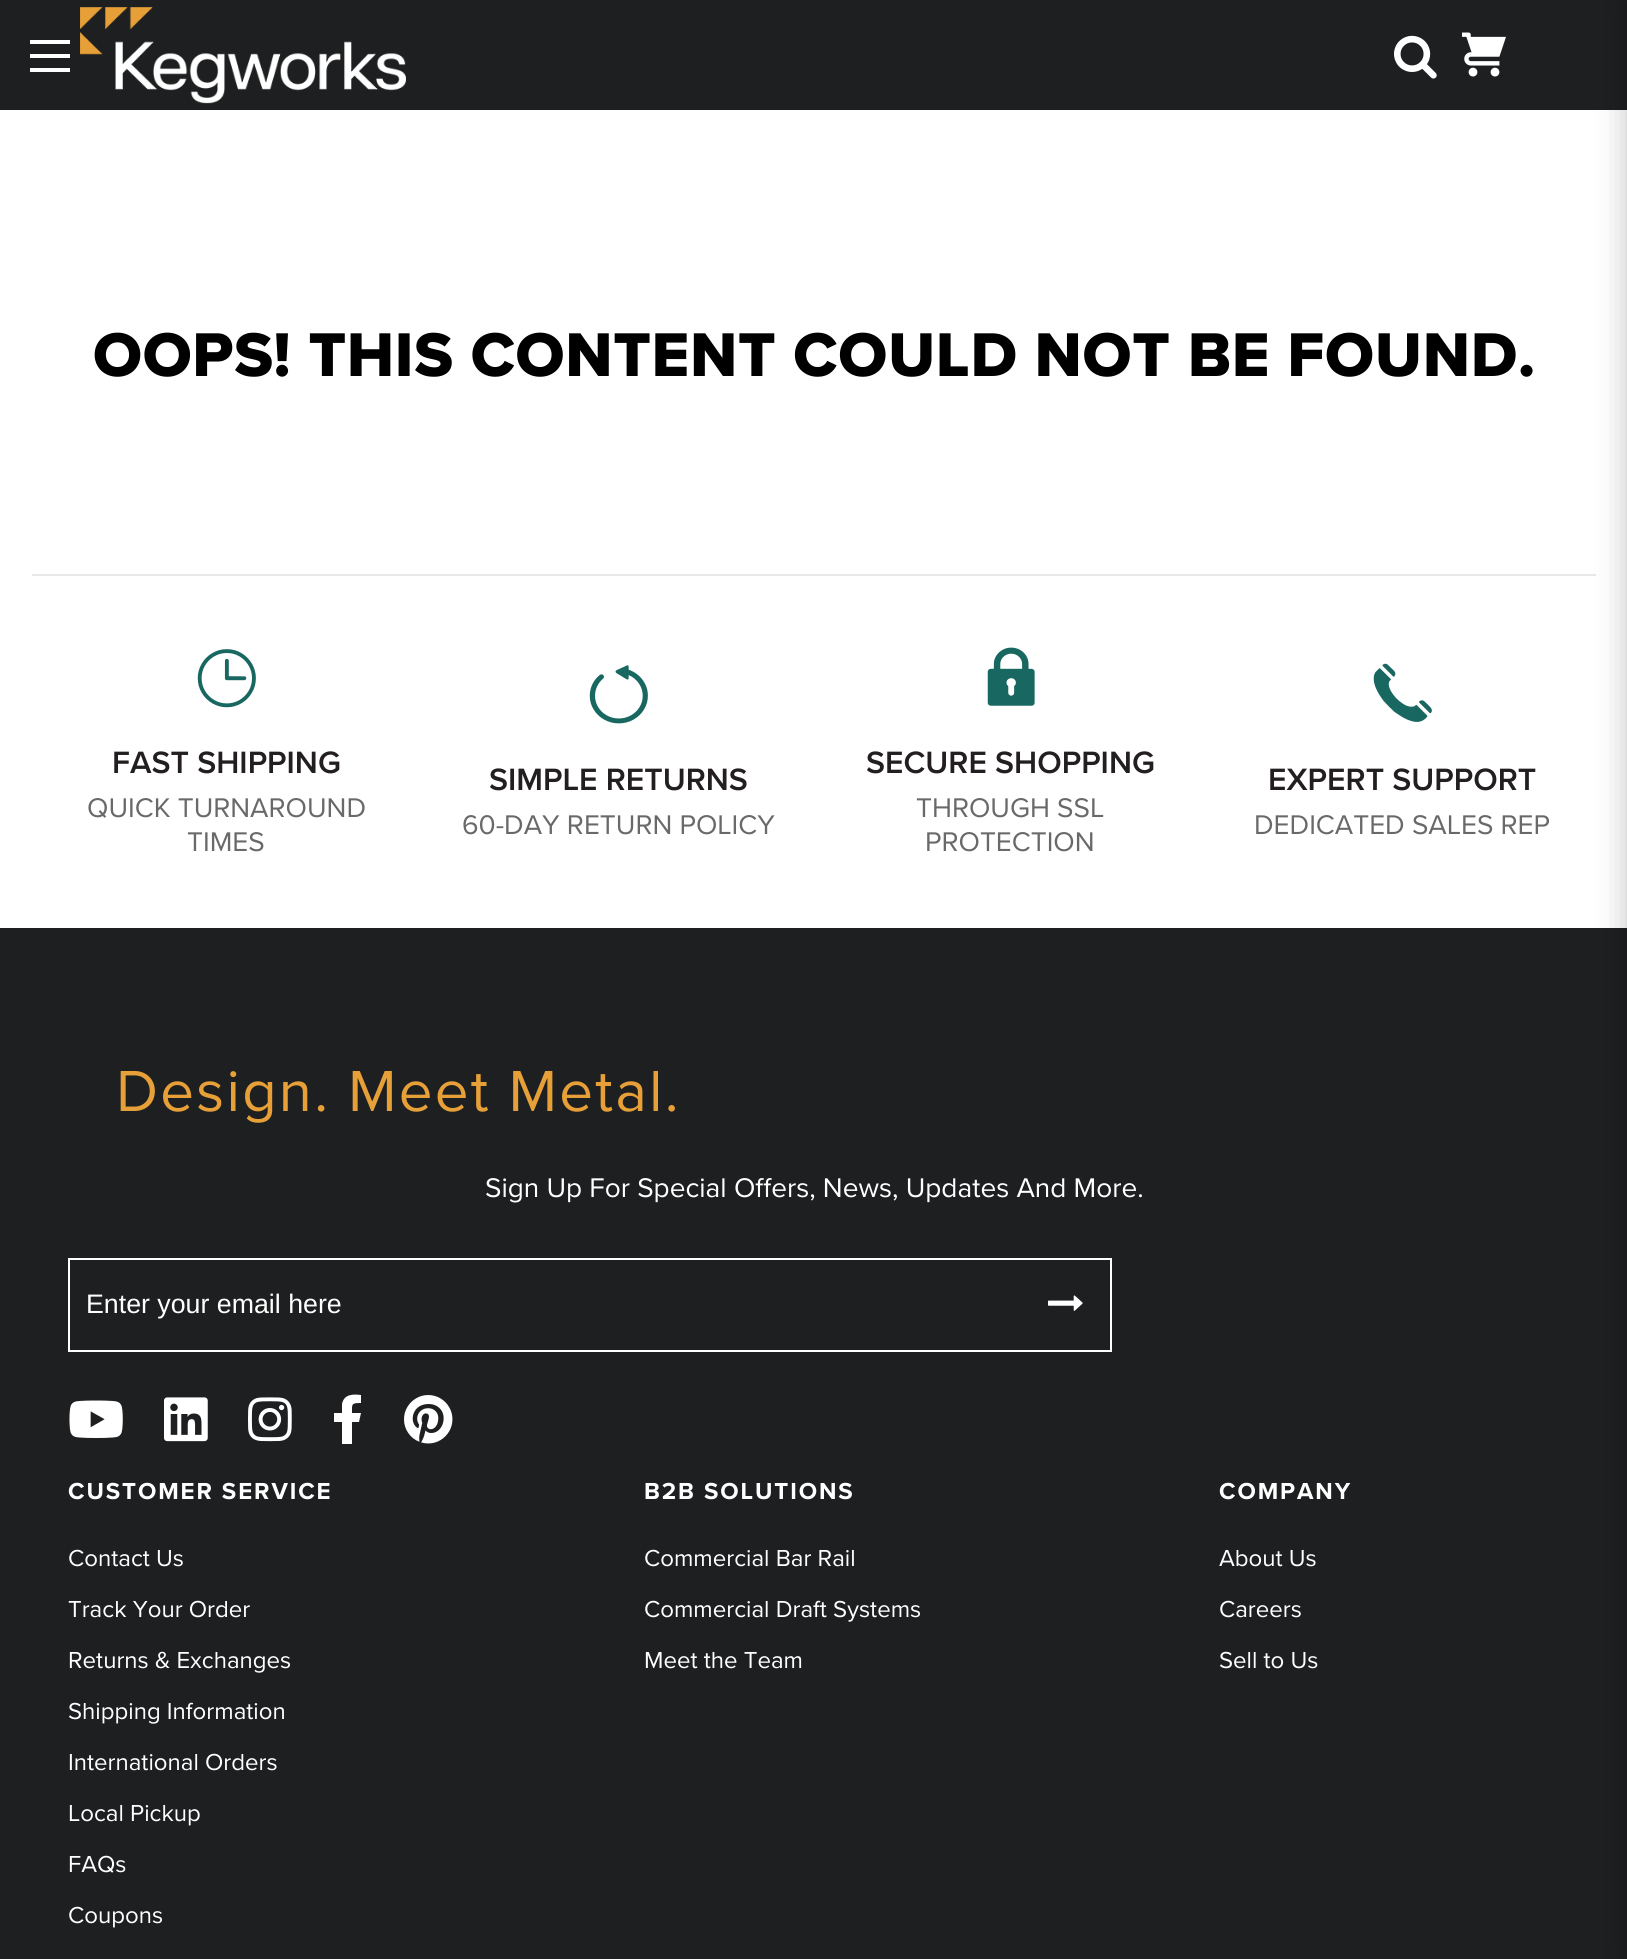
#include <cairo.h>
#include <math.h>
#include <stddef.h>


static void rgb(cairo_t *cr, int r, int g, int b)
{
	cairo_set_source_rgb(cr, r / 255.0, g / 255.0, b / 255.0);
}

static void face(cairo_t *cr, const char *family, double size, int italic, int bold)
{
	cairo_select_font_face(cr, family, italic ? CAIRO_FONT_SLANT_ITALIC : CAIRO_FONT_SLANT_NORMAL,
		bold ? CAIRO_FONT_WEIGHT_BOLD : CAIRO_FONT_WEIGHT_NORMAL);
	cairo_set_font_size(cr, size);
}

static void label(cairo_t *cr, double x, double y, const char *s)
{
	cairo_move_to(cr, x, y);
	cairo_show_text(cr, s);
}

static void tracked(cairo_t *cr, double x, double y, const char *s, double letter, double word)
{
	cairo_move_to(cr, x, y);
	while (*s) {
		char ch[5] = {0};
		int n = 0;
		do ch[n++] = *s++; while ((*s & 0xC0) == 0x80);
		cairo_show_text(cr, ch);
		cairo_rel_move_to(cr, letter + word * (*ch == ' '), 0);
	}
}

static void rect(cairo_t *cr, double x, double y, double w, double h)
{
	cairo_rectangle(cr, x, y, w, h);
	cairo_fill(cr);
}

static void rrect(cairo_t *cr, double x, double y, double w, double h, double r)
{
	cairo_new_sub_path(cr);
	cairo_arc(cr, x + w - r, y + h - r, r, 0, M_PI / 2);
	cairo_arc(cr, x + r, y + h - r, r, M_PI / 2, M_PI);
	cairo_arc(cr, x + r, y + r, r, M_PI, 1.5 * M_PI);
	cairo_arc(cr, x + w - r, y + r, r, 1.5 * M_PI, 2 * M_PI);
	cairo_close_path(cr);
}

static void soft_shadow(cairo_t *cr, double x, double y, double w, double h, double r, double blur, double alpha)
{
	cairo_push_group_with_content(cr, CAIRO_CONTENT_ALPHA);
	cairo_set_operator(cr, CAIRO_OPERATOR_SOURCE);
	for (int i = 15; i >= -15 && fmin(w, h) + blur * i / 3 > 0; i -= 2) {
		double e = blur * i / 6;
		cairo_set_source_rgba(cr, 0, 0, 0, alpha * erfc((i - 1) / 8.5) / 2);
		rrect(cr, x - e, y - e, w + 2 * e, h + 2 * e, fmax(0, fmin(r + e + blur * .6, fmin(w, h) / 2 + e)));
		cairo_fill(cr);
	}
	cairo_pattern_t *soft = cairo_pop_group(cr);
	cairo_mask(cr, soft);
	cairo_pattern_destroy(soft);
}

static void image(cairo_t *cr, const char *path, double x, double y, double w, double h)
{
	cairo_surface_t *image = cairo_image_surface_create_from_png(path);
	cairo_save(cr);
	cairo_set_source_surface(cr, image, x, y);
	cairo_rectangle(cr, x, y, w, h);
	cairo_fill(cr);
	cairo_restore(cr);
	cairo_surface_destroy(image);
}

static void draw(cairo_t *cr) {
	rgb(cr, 255, 255, 255);
	cairo_paint(cr);
	rgb(cr, 29, 31, 32);
	rect(cr, 0, 0, 1627, 110);
	rgb(cr, 255, 255, 255);
	rect(cr, 30, 40, 40, 4);
	rect(cr, 30, 54, 40, 4);
	rect(cr, 30, 68, 40, 4);
	image(cr, "image0.png", 80, 7, 326, 97);
	image(cr, "image1.png", 1394, 35, 43, 44);
	image(cr, "image2.png", 1462, 32, 44, 45);
	rgb(cr, 232, 232, 232);
	rect(cr, 32, 574, 1564, 2);
	rgb(cr, 29, 31, 32);
	rect(cr, 0, 928, 1627, 1031);
	rgb(cr, 0, 0, 0);
	soft_shadow(cr, 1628, 0, 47, 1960, 0, 16, 0.25);
	face(cr, "Proxima Nova ExtraBold", 64, 0, 0);
	rgb(cr, 0, 0, 0);
	tracked(cr, 93, 376, "OOPS! THIS CONTENT COULD NOT BE FOUND.", 0.65, 0);
	image(cr, "image3.png", 197, 649, 59, 59);
	face(cr, "Proxima Nova SemiBold", 32, 0, 0);
	rgb(cr, 35, 31, 32);
	label(cr, 112, 773, "FAST SHIPPING");
	face(cr, "Proxima Nova", 28, 0, 0);
	rgb(cr, 104, 105, 105);
	label(cr, 87, 817, "QUICK TURNAROUND");
	label(cr, 187, 851, "TIMES");
	image(cr, "image4.png", 589, 665, 59, 59);
	face(cr, "Proxima Nova SemiBold", 32, 0, 0);
	rgb(cr, 35, 31, 32);
	label(cr, 489, 790, "SIMPLE RETURNS");
	face(cr, "Proxima Nova", 28, 0, 0);
	rgb(cr, 104, 105, 105);
	label(cr, 462, 834, "60-DAY RETURN POLICY");
	image(cr, "image5.png", 987, 647, 48, 59);
	face(cr, "Proxima Nova SemiBold", 32, 0, 0);
	rgb(cr, 35, 31, 32);
	label(cr, 866, 773, "SECURE SHOPPING");
	face(cr, "Proxima Nova", 28, 0, 0);
	rgb(cr, 104, 105, 105);
	label(cr, 916, 817, "THROUGH SSL");
	label(cr, 925, 851, "PROTECTION");
	image(cr, "image6.png", 1373, 663, 59, 59);
	face(cr, "Proxima Nova SemiBold", 32, 0, 0);
	rgb(cr, 35, 31, 32);
	label(cr, 1268, 790, "EXPERT SUPPORT");
	face(cr, "Proxima Nova", 28, 0, 0);
	rgb(cr, 104, 105, 105);
	label(cr, 1254, 834, "DEDICATED SALES REP");
	face(cr, "Proxima Nova", 60, 0, 0);
	rgb(cr, 231, 160, 56);
	tracked(cr, 116, 1111, "Design. Meet Metal.", 2.25, 0);
	face(cr, "Proxima Nova", 28, 0, 0);
	rgb(cr, 255, 255, 255);
	label(cr, 485, 1197, "Sign Up For Special Offers, News, Updates And More.");
	rect(cr, 68, 1258, 1044, 2);
	rect(cr, 1110, 1258, 2, 94);
	rect(cr, 68, 1350, 1044, 2);
	image(cr, "image7.png", 1048, 1295, 35, 16);
	rect(cr, 68, 1258, 2, 94);
	face(cr, "Liberation Sans", 26.75, 0, 0);
	label(cr, 86, 1313, "Enter your email here");
	image(cr, "image8.png", 69, 1400, 54, 38);
	image(cr, "image9.png", 164, 1397, 44, 45);
	image(cr, "image10.png", 248, 1397, 44, 45);
	cairo_new_path(cr);
	cairo_move_to(cr, 359, 1422);
	cairo_line_to(cr, 361, 1413);
	cairo_line_to(cr, 352, 1413);
	cairo_curve_to(cr, 352, 1404, 351, 1403, 361, 1403);
	cairo_line_to(cr, 361, 1395);
	cairo_curve_to(cr, 353, 1394, 344, 1394, 342, 1404);
	cairo_line_to(cr, 342, 1413);
	cairo_line_to(cr, 334, 1413);
	cairo_line_to(cr, 334, 1422);
	cairo_line_to(cr, 342, 1422);
	cairo_line_to(cr, 342, 1444);
	cairo_line_to(cr, 352, 1444);
	cairo_line_to(cr, 352, 1422);
	cairo_close_path(cr);
	cairo_fill(cr);
	image(cr, "image11.png", 404, 1395, 49, 49);
	face(cr, "Proxima Nova", 24, 0, 1);
	tracked(cr, 68, 1499, "CUSTOMER SERVICE", 1.9, 0);
	face(cr, "Proxima Nova", 24, 0, 0);
	label(cr, 68, 1566, "Contact Us");
	label(cr, 68, 1617, "Track Your Order");
	label(cr, 68, 1668, "Returns & Exchanges");
	label(cr, 68, 1719, "Shipping Information");
	label(cr, 68, 1770, "International Orders");
	label(cr, 68, 1821, "Local Pickup");
	label(cr, 68, 1872, "FAQs");
	label(cr, 68, 1923, "Coupons");
	face(cr, "Proxima Nova", 24, 0, 1);
	tracked(cr, 644, 1499, "B2B SOLUTIONS", 1.9, 0);
	face(cr, "Proxima Nova", 24, 0, 0);
	label(cr, 644, 1566, "Commercial Bar Rail");
	label(cr, 644, 1617, "Commercial Draft Systems");
	label(cr, 644, 1668, "Meet the Team");
	face(cr, "Proxima Nova", 24, 0, 1);
	tracked(cr, 1219, 1499, "COMPANY", 1.9, 0);
	face(cr, "Proxima Nova", 24, 0, 0);
	label(cr, 1219, 1566, "About Us");
	label(cr, 1219, 1617, "Careers");
	label(cr, 1219, 1668, "Sell to Us");
}

int main(void) {
	cairo_surface_t *surface = cairo_image_surface_create(CAIRO_FORMAT_RGB24, 1627, 1959);
	cairo_t *cr = cairo_create(surface);
	cairo_font_options_t *options = cairo_font_options_create();
	cairo_font_options_set_hint_metrics(options, CAIRO_HINT_METRICS_OFF);
	cairo_font_options_set_hint_style(options, CAIRO_HINT_STYLE_NONE);
	cairo_set_font_options(cr, options);
	cairo_set_miter_limit(cr, 4);
	draw(cr);
	cairo_surface_write_to_png(surface, "render.png");
	cairo_font_options_destroy(options);
	cairo_destroy(cr);
	cairo_surface_destroy(surface);
	return 0;
}
